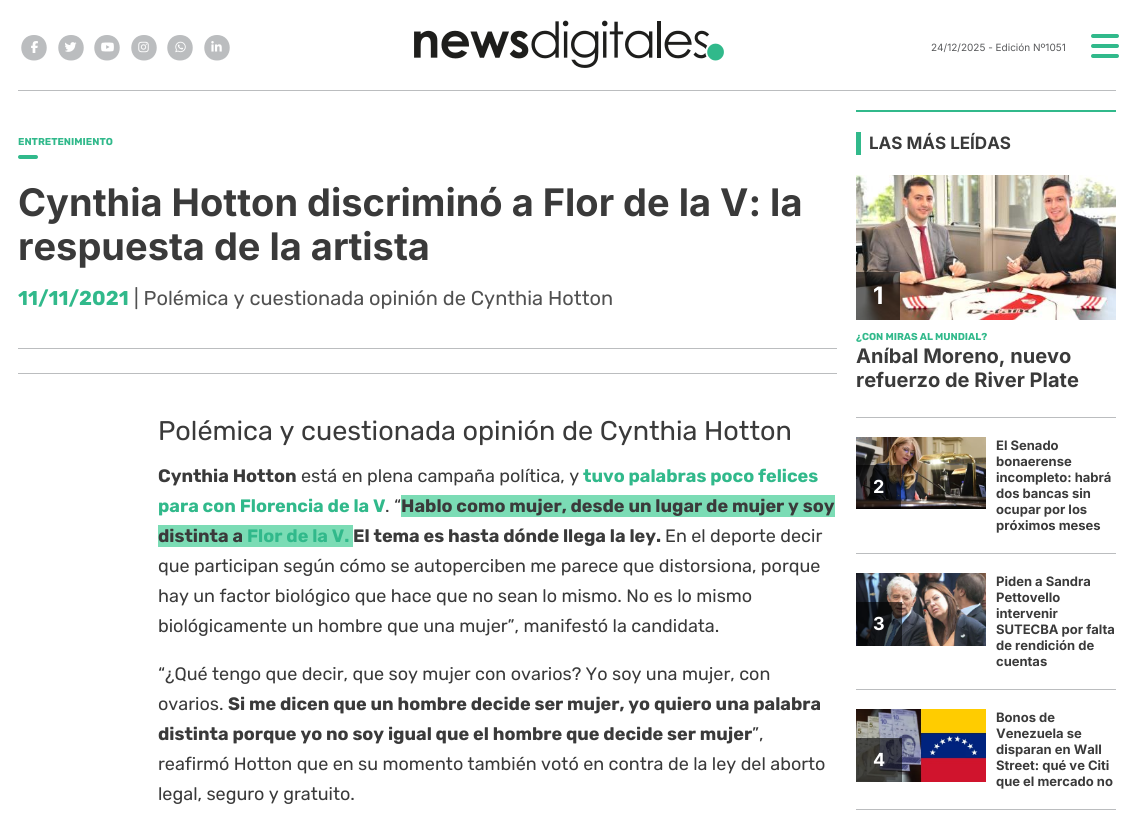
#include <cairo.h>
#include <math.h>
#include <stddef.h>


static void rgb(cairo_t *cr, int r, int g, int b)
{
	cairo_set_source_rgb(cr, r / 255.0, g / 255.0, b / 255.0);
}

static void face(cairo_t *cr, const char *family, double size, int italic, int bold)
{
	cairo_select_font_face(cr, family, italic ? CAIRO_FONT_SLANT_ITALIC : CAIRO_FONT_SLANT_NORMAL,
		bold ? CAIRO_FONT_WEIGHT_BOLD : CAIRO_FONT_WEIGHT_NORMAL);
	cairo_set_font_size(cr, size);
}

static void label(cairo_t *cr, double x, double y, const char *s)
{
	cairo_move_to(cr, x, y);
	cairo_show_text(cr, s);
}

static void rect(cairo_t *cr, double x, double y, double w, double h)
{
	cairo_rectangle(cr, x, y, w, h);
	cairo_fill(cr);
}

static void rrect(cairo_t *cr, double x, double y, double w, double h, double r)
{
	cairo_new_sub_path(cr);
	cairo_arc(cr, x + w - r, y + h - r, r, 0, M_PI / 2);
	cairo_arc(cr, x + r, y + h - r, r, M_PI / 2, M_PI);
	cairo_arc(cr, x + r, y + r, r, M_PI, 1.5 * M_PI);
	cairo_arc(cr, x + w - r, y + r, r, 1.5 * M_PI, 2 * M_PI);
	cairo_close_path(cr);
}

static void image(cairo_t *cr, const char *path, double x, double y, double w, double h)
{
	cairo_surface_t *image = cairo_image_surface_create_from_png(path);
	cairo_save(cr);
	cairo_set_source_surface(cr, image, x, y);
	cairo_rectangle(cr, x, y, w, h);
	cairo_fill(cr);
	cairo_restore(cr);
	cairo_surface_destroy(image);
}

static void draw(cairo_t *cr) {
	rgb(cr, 255, 255, 255);
	cairo_paint(cr);
	rgb(cr, 187, 189, 191);
	cairo_new_path(cr);
	cairo_move_to(cr, 34, 60.5);
	cairo_curve_to(cr, 51, 60.5, 51, 35, 34, 35);
	cairo_curve_to(cr, 17, 35, 17, 60.5, 34, 60.5);
	cairo_close_path(cr);
	cairo_fill(cr);
	image(cr, "image0.png", 31, 41, 7, 12);
	cairo_new_path(cr);
	cairo_move_to(cr, 71, 60.5);
	cairo_curve_to(cr, 88, 60.5, 88, 35, 71, 35);
	cairo_curve_to(cr, 54, 35, 54, 60.5, 71, 60.5);
	cairo_close_path(cr);
	cairo_fill(cr);
	image(cr, "image1.png", 65, 42, 12, 10);
	cairo_new_path(cr);
	cairo_move_to(cr, 107, 60.5);
	cairo_curve_to(cr, 124, 60.5, 124, 35, 107, 35);
	cairo_curve_to(cr, 90, 35, 90, 60.5, 107, 60.5);
	cairo_close_path(cr);
	cairo_fill(cr);
	image(cr, "image2.png", 101, 42, 13, 10);
	cairo_new_path(cr);
	cairo_move_to(cr, 144, 60.5);
	cairo_curve_to(cr, 161, 60.5, 161, 35, 144, 35);
	cairo_curve_to(cr, 127, 35, 127, 60.5, 144, 60.5);
	cairo_close_path(cr);
	cairo_fill(cr);
	image(cr, "image3.png", 138, 41, 11, 12);
	cairo_new_path(cr);
	cairo_move_to(cr, 180, 60.5);
	cairo_curve_to(cr, 197, 60.5, 197, 35, 180, 35);
	cairo_curve_to(cr, 163, 35, 163, 60.5, 180, 60.5);
	cairo_close_path(cr);
	cairo_fill(cr);
	image(cr, "image4.png", 175, 41, 11, 12);
	cairo_new_path(cr);
	cairo_move_to(cr, 217, 60.5);
	cairo_curve_to(cr, 234, 60.5, 234, 35, 217, 35);
	cairo_curve_to(cr, 200, 35, 200, 60.5, 217, 60.5);
	cairo_close_path(cr);
	cairo_fill(cr);
	image(cr, "image5.png", 211, 41, 11, 11);
	image(cr, "image6.png", 414, 20, 310, 48);
	face(cr, "Inter", 10, 0, 0);
	rgb(cr, 88, 89, 91);
	label(cr, 931, 51, "24/12/2025 - Edición Nº1051");
	image(cr, "image7.png", 1091, 34, 28, 24);
	rgb(cr, 187, 189, 191);
	rect(cr, 18, 90, 1098, 1);
	face(cr, "Rubik", 10, 0, 1);
	rgb(cr, 49, 185, 139);
	label(cr, 18, 145, "ENTRETENIMIENTO");
	rrect(cr, 18, 155, 20, 4, 2);
	cairo_fill(cr);
	face(cr, "Inter", 38, 0, 1);
	rgb(cr, 58, 58, 58);
	label(cr, 18, 216, "Cynthia Hotton discriminó a Flor de la V: la");
	label(cr, 18, 260, "respuesta de la artista");
	face(cr, "Rubik", 20, 0, 1);
	rgb(cr, 49, 185, 139);
	label(cr, 18, 305, "11/11/2021");
	face(cr, "Rubik", 20, 0, 0);
	rgb(cr, 81, 81, 81);
	label(cr, 134, 305, "| Polémica y cuestionada opinión de Cynthia Hotton");
	rgb(cr, 187, 189, 191);
	rect(cr, 18, 348, 819, 1);
	rect(cr, 18, 373, 819, 1);
	face(cr, "Rubik", 27, 0, 0);
	rgb(cr, 58, 58, 58);
	label(cr, 158, 440, "Polémica y cuestionada opinión de Cynthia Hotton");
	face(cr, "Rubik", 18, 0, 1);
	label(cr, 158, 482, "Cynthia Hotton");
	face(cr, "Rubik", 18, 0, 0);
	label(cr, 301, 482, "está en plena campaña política, y");
	face(cr, "Rubik", 18, 0, 1);
	rgb(cr, 49, 185, 139);
	label(cr, 583, 482, "tuvo palabras poco felices");
	label(cr, 158, 512, "para con Florencia de la V");
	face(cr, "Rubik", 18, 0, 0);
	rgb(cr, 58, 58, 58);
	label(cr, 385, 512, ". “");
	rgb(cr, 123, 220, 181);
	rect(cr, 401, 495, 434, 22);
	face(cr, "Rubik", 18, 0, 1);
	rgb(cr, 58, 58, 58);
	label(cr, 401, 512, "Hablo como mujer, desde un lugar de mujer y soy");
	rgb(cr, 123, 220, 181);
	rect(cr, 158, 525, 195, 22);
	rgb(cr, 58, 58, 58);
	label(cr, 158, 542, "distinta a");
	rgb(cr, 49, 185, 139);
	label(cr, 247, 542, "Flor de la V.");
	rgb(cr, 58, 58, 58);
	label(cr, 353, 542, "El tema es hasta dónde llega la ley.");
	face(cr, "Rubik", 18, 0, 0);
	label(cr, 665, 542, "En el deporte decir");
	label(cr, 158, 572, "que participan según cómo se autoperciben me parece que distorsiona, porque");
	label(cr, 158, 602, "hay un factor biológico que hace que no sean lo mismo. No es lo mismo");
	label(cr, 158, 632, "biológicamente un hombre que una mujer”, manifestó la candidata.");
	label(cr, 158, 680, "“¿Qué tengo que decir, que soy mujer con ovarios? Yo soy una mujer, con");
	label(cr, 158, 710, "ovarios.");
	face(cr, "Rubik", 18, 0, 1);
	label(cr, 228, 710, "Si me dicen que un hombre decide ser mujer, yo quiero una palabra");
	label(cr, 158, 740, "distinta porque yo no soy igual que el hombre que decide ser mujer");
	face(cr, "Rubik", 18, 0, 0);
	label(cr, 752, 740, "”,");
	label(cr, 158, 770, "reafirmó Hotton que en su momento también votó en contra de la ley del aborto");
	label(cr, 158, 800, "legal, seguro y gratuito.");
	rgb(cr, 49, 185, 139);
	rect(cr, 856, 110, 260, 2);
	rect(cr, 856, 132, 5, 23);
	face(cr, "Inter", 17, 0, 1);
	rgb(cr, 58, 58, 58);
	label(cr, 869, 149, "LAS MÁS LEÍDAS");
	rgb(cr, 187, 189, 191);
	rect(cr, 856, 417, 260, 1);
	image(cr, "image8.png", 856, 175, 260, 145);
	cairo_set_source_rgba(cr, 0, 0, 0, 0.6);
	rect(cr, 856, 272, 44, 48);
	face(cr, "Inter", 24, 0, 1);
	rgb(cr, 255, 255, 255);
	label(cr, 873, 304, "1");
	face(cr, "Rubik", 10, 0, 1);
	rgb(cr, 49, 185, 139);
	label(cr, 856, 340, "¿CON MIRAS AL MUNDIAL?");
	face(cr, "Inter", 20, 0, 1);
	rgb(cr, 58, 58, 58);
	label(cr, 856, 363, "Aníbal Moreno, nuevo");
	label(cr, 856, 387, "refuerzo de River Plate");
	rgb(cr, 187, 189, 191);
	rect(cr, 856, 553, 260, 1);
	image(cr, "image9.png", 856, 437, 130, 72);
	cairo_set_source_rgba(cr, 0, 0, 0, 0.6);
	rect(cr, 856, 465, 45, 44);
	face(cr, "Inter", 18, 0, 1);
	rgb(cr, 255, 255, 255);
	label(cr, 873, 493, "2");
	face(cr, "Inter", 13, 0, 1);
	rgb(cr, 58, 58, 58);
	label(cr, 996, 450, "El Senado");
	label(cr, 996, 466, "bonaerense");
	label(cr, 996, 482, "incompleto: habrá");
	label(cr, 996, 498, "dos bancas sin");
	label(cr, 996, 514, "ocupar por los");
	label(cr, 996, 530, "próximos meses");
	rgb(cr, 187, 189, 191);
	rect(cr, 856, 689, 260, 1);
	image(cr, "image10.png", 856, 573, 130, 73);
	cairo_set_source_rgba(cr, 0, 0, 0, 0.6);
	rect(cr, 856, 602, 46, 44);
	face(cr, "Inter", 18, 0, 1);
	rgb(cr, 255, 255, 255);
	label(cr, 873, 630, "3");
	face(cr, "Inter", 13, 0, 1);
	rgb(cr, 58, 58, 58);
	label(cr, 996, 586, "Piden a Sandra");
	label(cr, 996, 602, "Pettovello");
	label(cr, 996, 618, "intervenir");
	label(cr, 996, 634, "SUTECBA por falta");
	label(cr, 996, 650, "de rendición de");
	label(cr, 996, 666, "cuentas");
	rgb(cr, 187, 189, 191);
	rect(cr, 856, 809, 260, 1);
	image(cr, "image11.png", 856, 709, 130, 73);
	cairo_set_source_rgba(cr, 0, 0, 0, 0.6);
	rect(cr, 856, 738, 46, 44);
	face(cr, "Inter", 18, 0, 1);
	rgb(cr, 255, 255, 255);
	label(cr, 873, 766, "4");
	face(cr, "Inter", 13, 0, 1);
	rgb(cr, 58, 58, 58);
	label(cr, 996, 722, "Bonos de");
	label(cr, 996, 738, "Venezuela se");
	label(cr, 996, 754, "disparan en Wall");
	label(cr, 996, 770, "Street: qué ve Citi");
	label(cr, 996, 786, "que el mercado no");
}

int main(void) {
	cairo_surface_t *surface = cairo_image_surface_create(CAIRO_FORMAT_RGB24, 1134, 823);
	cairo_t *cr = cairo_create(surface);
	cairo_font_options_t *options = cairo_font_options_create();
	cairo_font_options_set_hint_metrics(options, CAIRO_HINT_METRICS_OFF);
	cairo_font_options_set_hint_style(options, CAIRO_HINT_STYLE_NONE);
	cairo_set_font_options(cr, options);
	cairo_set_miter_limit(cr, 4);
	draw(cr);
	cairo_surface_write_to_png(surface, "render.png");
	cairo_font_options_destroy(options);
	cairo_destroy(cr);
	cairo_surface_destroy(surface);
	return 0;
}
